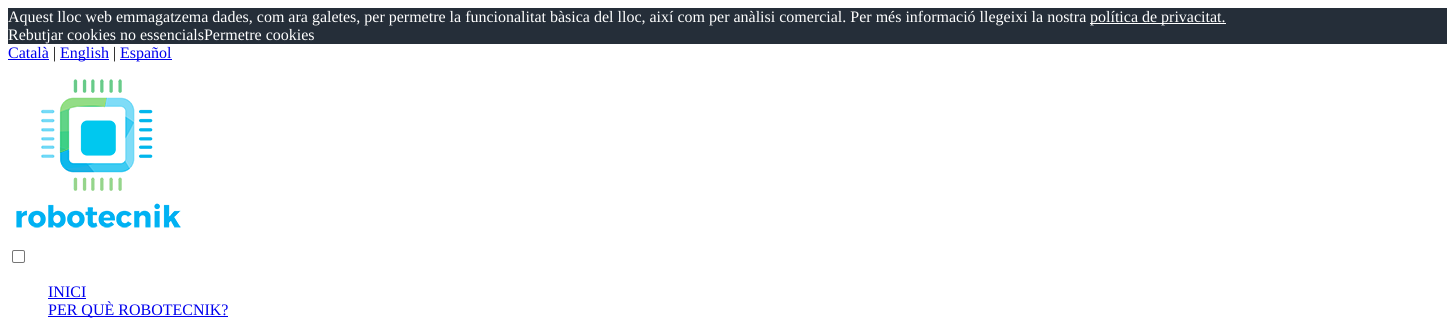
#include <cairo.h>
#include <math.h>
#include <stddef.h>


static void rgb(cairo_t *cr, int r, int g, int b)
{
	cairo_set_source_rgb(cr, r / 255.0, g / 255.0, b / 255.0);
}

static void face(cairo_t *cr, const char *family, double size, int italic, int bold)
{
	cairo_select_font_face(cr, family, italic ? CAIRO_FONT_SLANT_ITALIC : CAIRO_FONT_SLANT_NORMAL,
		bold ? CAIRO_FONT_WEIGHT_BOLD : CAIRO_FONT_WEIGHT_NORMAL);
	cairo_set_font_size(cr, size);
}

static void label(cairo_t *cr, double x, double y, const char *s)
{
	cairo_move_to(cr, x, y);
	cairo_show_text(cr, s);
}

static void rect(cairo_t *cr, double x, double y, double w, double h)
{
	cairo_rectangle(cr, x, y, w, h);
	cairo_fill(cr);
}

static void rrect(cairo_t *cr, double x, double y, double w, double h, double r)
{
	cairo_new_sub_path(cr);
	cairo_arc(cr, x + w - r, y + h - r, r, 0, M_PI / 2);
	cairo_arc(cr, x + r, y + h - r, r, M_PI / 2, M_PI);
	cairo_arc(cr, x + r, y + r, r, M_PI, 1.5 * M_PI);
	cairo_arc(cr, x + w - r, y + r, r, 1.5 * M_PI, 2 * M_PI);
	cairo_close_path(cr);
}

static void image(cairo_t *cr, const char *path, double x, double y, double w, double h)
{
	cairo_surface_t *image = cairo_image_surface_create_from_png(path);
	cairo_save(cr);
	cairo_set_source_surface(cr, image, x, y);
	cairo_rectangle(cr, x, y, w, h);
	cairo_fill(cr);
	cairo_restore(cr);
	cairo_surface_destroy(image);
}

static void draw(cairo_t *cr) {
	rgb(cr, 255, 255, 255);
	cairo_paint(cr);
	rgb(cr, 37, 46, 57);
	rect(cr, 8, 8, 1439, 36);
	face(cr, "Liberation Serif", 16, 0, 0);
	rgb(cr, 255, 255, 255);
	label(cr, 8, 22, "Aquest lloc web emmagatzema dades, com ara galetes, per permetre la funcionalitat bàsica del lloc, així com per anàlisi comercial. Per més informació llegeixi la nostra");
	rect(cr, 1090, 23, 136, 1);
	label(cr, 1090, 22, "política de privacitat.");
	label(cr, 8, 40, "Rebutjar cookies no essencialsPermetre cookies");
	rgb(cr, 0, 0, 238);
	label(cr, 8, 58, "Català");
	rect(cr, 8, 59, 41, 1);
	rgb(cr, 0, 0, 0);
	label(cr, 53, 58, "|");
	rgb(cr, 0, 0, 238);
	rect(cr, 60, 59, 49, 1);
	label(cr, 60, 58, "English");
	rgb(cr, 0, 0, 0);
	label(cr, 113, 58, "|");
	rgb(cr, 0, 0, 238);
	rect(cr, 120, 59, 52, 1);
	label(cr, 120, 58, "Español");
	image(cr, "image0.png", 16, 79, 165, 149);
	rrect(cr, 12.5, 250.5, 12, 12, 1.5);
	rgb(cr, 118, 118, 118);
	cairo_set_line_width(cr, 1);
	cairo_stroke(cr);
	rgb(cr, 0, 0, 238);
	label(cr, 48, 297, "INICI");
	rect(cr, 48, 298, 38, 1);
	rect(cr, 48, 316, 180, 1);
	label(cr, 48, 315, "PER QUÈ ROBOTECNIK?");
}

int main(void) {
	cairo_surface_t *surface = cairo_image_surface_create(CAIRO_FORMAT_RGB24, 1455, 324);
	cairo_t *cr = cairo_create(surface);
	cairo_font_options_t *options = cairo_font_options_create();
	cairo_font_options_set_hint_metrics(options, CAIRO_HINT_METRICS_OFF);
	cairo_font_options_set_hint_style(options, CAIRO_HINT_STYLE_NONE);
	cairo_set_font_options(cr, options);
	cairo_set_miter_limit(cr, 4);
	draw(cr);
	cairo_surface_write_to_png(surface, "render.png");
	cairo_font_options_destroy(options);
	cairo_destroy(cr);
	cairo_surface_destroy(surface);
	return 0;
}
